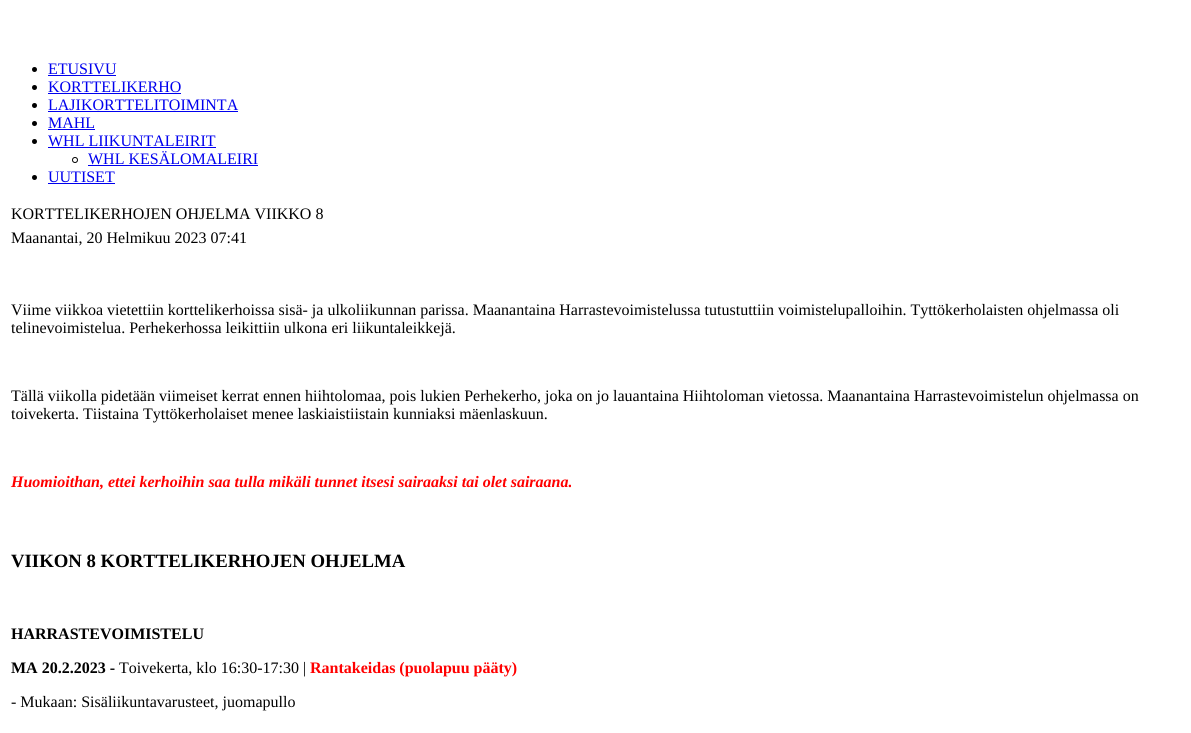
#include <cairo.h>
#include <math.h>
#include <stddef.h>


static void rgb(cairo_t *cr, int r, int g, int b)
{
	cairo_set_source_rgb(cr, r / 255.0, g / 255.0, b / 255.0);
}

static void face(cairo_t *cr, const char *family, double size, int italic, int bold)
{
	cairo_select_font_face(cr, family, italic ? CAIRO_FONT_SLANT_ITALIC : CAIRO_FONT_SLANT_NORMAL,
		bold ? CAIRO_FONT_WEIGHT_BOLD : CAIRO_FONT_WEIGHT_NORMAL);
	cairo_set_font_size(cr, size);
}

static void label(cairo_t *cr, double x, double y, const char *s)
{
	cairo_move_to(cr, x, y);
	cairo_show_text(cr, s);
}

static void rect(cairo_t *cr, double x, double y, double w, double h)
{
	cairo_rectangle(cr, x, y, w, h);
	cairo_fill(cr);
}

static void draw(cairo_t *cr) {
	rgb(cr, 255, 255, 255);
	cairo_paint(cr);
	rgb(cr, 0, 0, 0);
	cairo_arc(cr, 34.5, 69.5, 2.5, 0, 2 * M_PI);
	cairo_fill(cr);
	face(cr, "Liberation Serif", 16, 0, 0);
	rgb(cr, 0, 0, 238);
	label(cr, 48, 74, "ETUSIVU");
	rect(cr, 48, 75, 68, 1);
	rgb(cr, 0, 0, 0);
	cairo_new_path(cr);
	cairo_arc(cr, 34.5, 87.5, 2.5, 0, 2 * M_PI);
	cairo_fill(cr);
	rgb(cr, 0, 0, 238);
	label(cr, 48, 92, "KORTTELIKERHO");
	rect(cr, 48, 93, 133, 1);
	rgb(cr, 0, 0, 0);
	cairo_new_path(cr);
	cairo_arc(cr, 34.5, 105.5, 2.5, 0, 2 * M_PI);
	cairo_fill(cr);
	rgb(cr, 0, 0, 238);
	label(cr, 48, 110, "LAJIKORTTELITOIMINTA");
	rect(cr, 48, 111, 190, 1);
	rgb(cr, 0, 0, 0);
	cairo_new_path(cr);
	cairo_arc(cr, 34.5, 123.5, 2.5, 0, 2 * M_PI);
	cairo_fill(cr);
	rgb(cr, 0, 0, 238);
	label(cr, 48, 128, "MAHL");
	rect(cr, 48, 129, 47, 1);
	rgb(cr, 0, 0, 0);
	cairo_new_path(cr);
	cairo_arc(cr, 34.5, 141.5, 2.5, 0, 2 * M_PI);
	cairo_fill(cr);
	rgb(cr, 0, 0, 238);
	label(cr, 48, 146, "WHL LIIKUNTALEIRIT");
	rect(cr, 48, 147, 168, 1);
	cairo_new_path(cr);
	cairo_arc(cr, 75, 160, 2.5, 0, 2 * M_PI);
	rgb(cr, 0, 0, 0);
	cairo_set_line_width(cr, 1);
	cairo_stroke(cr);
	rgb(cr, 0, 0, 238);
	label(cr, 88, 164, "WHL KESÄLOMALEIRI");
	rect(cr, 88, 165, 170, 1);
	rgb(cr, 0, 0, 0);
	cairo_new_path(cr);
	cairo_arc(cr, 34.5, 177.5, 2.5, 0, 2 * M_PI);
	cairo_fill(cr);
	rgb(cr, 0, 0, 238);
	label(cr, 48, 182, "UUTISET");
	rect(cr, 48, 183, 67, 1);
	rgb(cr, 0, 0, 0);
	label(cr, 11, 219, "KORTTELIKERHOJEN OHJELMA VIIKKO 8");
	label(cr, 11, 243, "Maanantai, 20 Helmikuu 2023 07:41");
	label(cr, 11, 315, "Viime viikkoa vietettiin korttelikerhoissa sisä- ja ulkoliikunnan parissa. Maanantaina Harrastevoimistelussa tutustuttiin voimistelupalloihin. Tyttökerholaisten ohjelmassa oli");
	label(cr, 11, 333, "telinevoimistelua. Perhekerhossa leikittiin ulkona eri liikuntaleikkejä.");
	label(cr, 11, 401, "Tällä viikolla pidetään viimeiset kerrat ennen hiihtolomaa, pois lukien Perhekerho, joka on jo lauantaina Hiihtoloman vietossa. Maanantaina Harrastevoimistelun ohjelmassa on");
	label(cr, 11, 419, "toivekerta. Tiistaina Tyttökerholaiset menee laskiaistiistain kunniaksi mäenlaskuun.");
	face(cr, "Liberation Serif", 16, 1, 1);
	rgb(cr, 255, 0, 0);
	label(cr, 11, 487, "Huomioithan, ettei kerhoihin saa tulla mikäli tunnet itsesi sairaaksi tai olet sairaana.");
	face(cr, "Liberation Serif", 18.75, 0, 1);
	rgb(cr, 0, 0, 0);
	label(cr, 11, 567, "VIIKON 8 KORTTELIKERHOJEN OHJELMA");
	face(cr, "Liberation Serif", 16, 0, 1);
	label(cr, 11, 639, "HARRASTEVOIMISTELU");
	label(cr, 11, 673, "MA 20.2.2023 -");
	face(cr, "Liberation Serif", 16, 0, 0);
	label(cr, 119, 673, "Toivekerta, klo 16:30-17:30 |");
	face(cr, "Liberation Serif", 16, 0, 1);
	rgb(cr, 255, 0, 0);
	label(cr, 310, 673, "Rantakeidas (puolapuu pääty)");
	face(cr, "Liberation Serif", 16, 0, 0);
	rgb(cr, 0, 0, 0);
	label(cr, 11, 707, "- Mukaan: Sisäliikuntavarusteet, juomapullo");
}

int main(void) {
	cairo_surface_t *surface = cairo_image_surface_create(CAIRO_FORMAT_RGB24, 1191, 733);
	cairo_t *cr = cairo_create(surface);
	cairo_font_options_t *options = cairo_font_options_create();
	cairo_font_options_set_hint_metrics(options, CAIRO_HINT_METRICS_OFF);
	cairo_font_options_set_hint_style(options, CAIRO_HINT_STYLE_NONE);
	cairo_set_font_options(cr, options);
	cairo_set_miter_limit(cr, 4);
	draw(cr);
	cairo_surface_write_to_png(surface, "render.png");
	cairo_font_options_destroy(options);
	cairo_destroy(cr);
	cairo_surface_destroy(surface);
	return 0;
}
